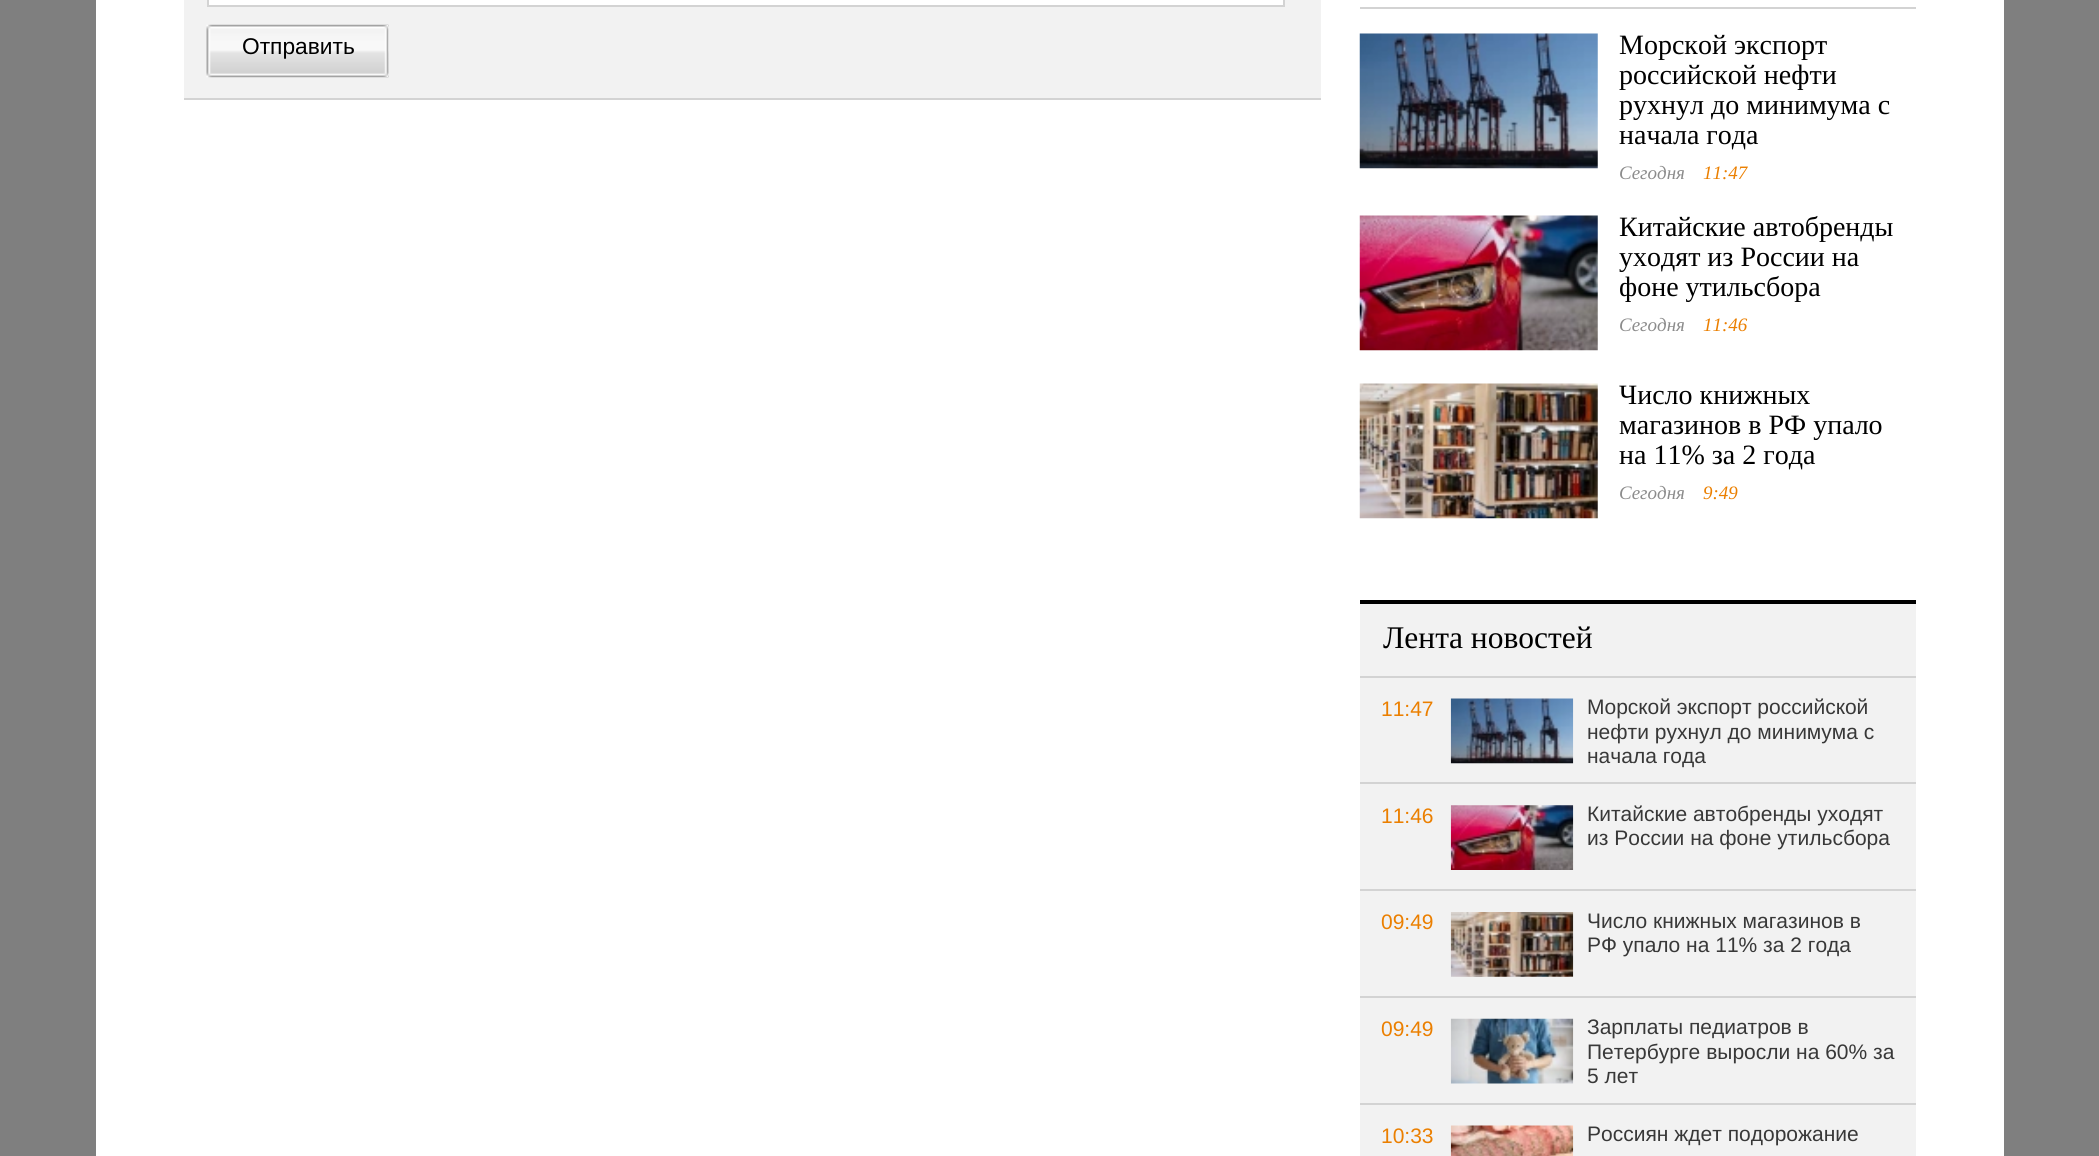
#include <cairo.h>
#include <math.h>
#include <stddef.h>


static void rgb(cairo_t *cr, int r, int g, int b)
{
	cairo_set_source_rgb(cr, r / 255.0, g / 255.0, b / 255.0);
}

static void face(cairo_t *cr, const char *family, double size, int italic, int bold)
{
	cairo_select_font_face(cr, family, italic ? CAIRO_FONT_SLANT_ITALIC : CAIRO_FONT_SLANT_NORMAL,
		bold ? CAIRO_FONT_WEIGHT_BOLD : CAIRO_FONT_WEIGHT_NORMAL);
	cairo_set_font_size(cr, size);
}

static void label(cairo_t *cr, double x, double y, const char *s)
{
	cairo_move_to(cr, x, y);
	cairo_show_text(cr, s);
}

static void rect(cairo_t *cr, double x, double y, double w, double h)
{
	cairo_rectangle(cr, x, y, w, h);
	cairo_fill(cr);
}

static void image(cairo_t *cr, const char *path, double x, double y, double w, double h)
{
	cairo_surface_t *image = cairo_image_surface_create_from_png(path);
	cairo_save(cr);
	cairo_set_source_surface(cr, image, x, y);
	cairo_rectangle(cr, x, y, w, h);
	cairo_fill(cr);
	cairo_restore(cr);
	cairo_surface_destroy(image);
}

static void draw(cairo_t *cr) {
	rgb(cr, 127, 127, 127);
	cairo_paint(cr);
	rgb(cr, 255, 255, 255);
	rect(cr, 96, 0, 1908, 1156);
	rgb(cr, 242, 242, 242);
	rect(cr, 184, 0, 1137, 98);
	rgb(cr, 211, 211, 211);
	rect(cr, 184, 98, 1137, 2);
	rgb(cr, 255, 255, 255);
	cairo_rectangle(cr, 208, -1, 1076, 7);
	cairo_fill_preserve(cr);
	rgb(cr, 211, 211, 211);
	cairo_stroke(cr);
	image(cr, "image0.png", 206, 24, 183, 54);
	image(cr, "image1.png", 383, 25, 6, 52);
	face(cr, "Liberation Sans", 22.75, 0, 0);
	rgb(cr, 0, 0, 0);
	label(cr, 242, 54, "Отправить");
	rgb(cr, 211, 211, 211);
	rect(cr, 1360, 7, 556, 2);
	image(cr, "image2.png", 1359, 33, 239, 136);
	face(cr, "Liberation Serif", 28, 0, 0);
	rgb(cr, 0, 0, 0);
	label(cr, 1619, 54, "Морской экспорт");
	label(cr, 1619, 84, "российской нефти");
	label(cr, 1619, 114, "рухнул до минимума с");
	label(cr, 1619, 144, "начала года");
	face(cr, "Liberation Serif", 19, 1, 0);
	rgb(cr, 140, 140, 140);
	label(cr, 1619, 179, "Сегодня");
	rgb(cr, 235, 127, 0);
	label(cr, 1703, 179, "11:47");
	image(cr, "image3.png", 1359, 215, 239, 136);
	face(cr, "Liberation Serif", 28, 0, 0);
	rgb(cr, 0, 0, 0);
	label(cr, 1619, 236, "Китайские автобренды");
	label(cr, 1619, 266, "уходят из России на");
	label(cr, 1619, 296, "фоне утильсбора");
	face(cr, "Liberation Serif", 19, 1, 0);
	rgb(cr, 140, 140, 140);
	label(cr, 1619, 331, "Сегодня");
	rgb(cr, 235, 127, 0);
	label(cr, 1703, 331, "11:46");
	image(cr, "image4.png", 1359, 383, 239, 136);
	face(cr, "Liberation Serif", 28, 0, 0);
	rgb(cr, 0, 0, 0);
	label(cr, 1619, 404, "Число книжных");
	label(cr, 1619, 434, "магазинов в РФ упало");
	label(cr, 1619, 464, "на 11% за 2 года");
	face(cr, "Liberation Serif", 19, 1, 0);
	rgb(cr, 140, 140, 140);
	label(cr, 1619, 499, "Сегодня");
	rgb(cr, 235, 127, 0);
	label(cr, 1703, 499, "9:49");
	rgb(cr, 242, 242, 242);
	rect(cr, 1360, 604, 556, 552);
	rgb(cr, 0, 0, 0);
	rect(cr, 1360, 600, 556, 4);
	rgb(cr, 211, 211, 211);
	rect(cr, 1360, 676, 556, 2);
	face(cr, "Liberation Serif", 31.5, 0, 0);
	rgb(cr, 0, 0, 0);
	label(cr, 1383, 648, "Лента новостей");
	rgb(cr, 211, 211, 211);
	rect(cr, 1360, 782, 556, 2);
	face(cr, "Liberation Sans", 21, 0, 0);
	rgb(cr, 235, 127, 0);
	label(cr, 1381, 716, "11:47");
	image(cr, "image5.png", 1450, 698, 124, 66);
	rgb(cr, 56, 56, 56);
	label(cr, 1587, 714, "Морской экспорт российской");
	label(cr, 1587, 739, "нефти рухнул до минимума с");
	label(cr, 1587, 763, "начала года");
	rgb(cr, 211, 211, 211);
	rect(cr, 1360, 889, 556, 2);
	rgb(cr, 235, 127, 0);
	label(cr, 1381, 823, "11:46");
	image(cr, "image6.png", 1450, 805, 124, 65);
	rgb(cr, 56, 56, 56);
	label(cr, 1587, 821, "Китайские автобренды уходят");
	label(cr, 1587, 845, "из России на фоне утильсбора");
	rgb(cr, 211, 211, 211);
	rect(cr, 1360, 996, 556, 2);
	rgb(cr, 235, 127, 0);
	label(cr, 1381, 929, "09:49");
	image(cr, "image7.png", 1450, 912, 124, 65);
	rgb(cr, 56, 56, 56);
	label(cr, 1587, 928, "Число книжных магазинов в");
	label(cr, 1587, 952, "РФ упало на 11% за 2 года");
	rgb(cr, 211, 211, 211);
	rect(cr, 1360, 1103, 556, 2);
	rgb(cr, 235, 127, 0);
	label(cr, 1381, 1036, "09:49");
	image(cr, "image8.png", 1450, 1018, 124, 66);
	rgb(cr, 56, 56, 56);
	label(cr, 1587, 1034, "Зарплаты педиатров в");
	label(cr, 1587, 1059, "Петербурге выросли на 60% за");
	label(cr, 1587, 1083, "5 лет");
	rgb(cr, 235, 127, 0);
	label(cr, 1381, 1143, "10:33");
	image(cr, "image9.png", 1450, 1125, 124, 31);
	rgb(cr, 56, 56, 56);
	label(cr, 1587, 1141, "Россиян ждет подорожание");
}

int main(void) {
	cairo_surface_t *surface = cairo_image_surface_create(CAIRO_FORMAT_RGB24, 2099, 1156);
	cairo_t *cr = cairo_create(surface);
	cairo_font_options_t *options = cairo_font_options_create();
	cairo_font_options_set_hint_metrics(options, CAIRO_HINT_METRICS_OFF);
	cairo_font_options_set_hint_style(options, CAIRO_HINT_STYLE_NONE);
	cairo_set_font_options(cr, options);
	cairo_set_miter_limit(cr, 4);
	draw(cr);
	cairo_surface_write_to_png(surface, "render.png");
	cairo_font_options_destroy(options);
	cairo_destroy(cr);
	cairo_surface_destroy(surface);
	return 0;
}
